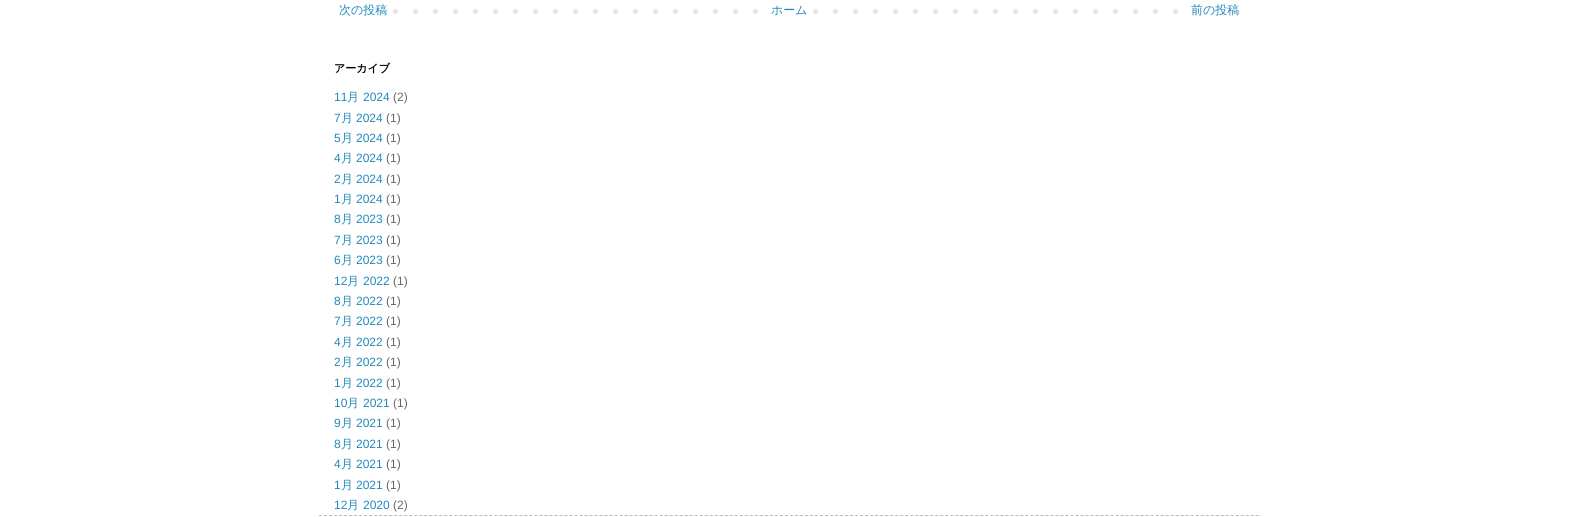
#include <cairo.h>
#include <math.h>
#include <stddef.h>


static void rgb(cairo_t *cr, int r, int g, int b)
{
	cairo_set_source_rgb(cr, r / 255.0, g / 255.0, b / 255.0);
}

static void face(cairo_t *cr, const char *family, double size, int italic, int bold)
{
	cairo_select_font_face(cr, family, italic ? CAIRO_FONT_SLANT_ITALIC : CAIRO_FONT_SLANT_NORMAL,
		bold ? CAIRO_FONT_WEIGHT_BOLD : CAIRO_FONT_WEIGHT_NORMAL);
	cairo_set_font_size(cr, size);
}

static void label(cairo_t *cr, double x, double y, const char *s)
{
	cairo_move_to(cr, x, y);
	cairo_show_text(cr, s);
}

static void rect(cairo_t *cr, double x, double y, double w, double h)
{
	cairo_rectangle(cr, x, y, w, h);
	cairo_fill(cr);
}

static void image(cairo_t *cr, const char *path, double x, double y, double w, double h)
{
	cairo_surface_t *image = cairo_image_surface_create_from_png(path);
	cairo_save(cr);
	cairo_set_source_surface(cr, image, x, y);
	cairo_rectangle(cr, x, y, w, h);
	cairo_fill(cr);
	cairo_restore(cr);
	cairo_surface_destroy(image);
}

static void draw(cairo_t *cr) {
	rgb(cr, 255, 255, 255);
	cairo_paint(cr);
	image(cr, "image0.png", 393, 9, 785, 5);
	face(cr, "WenQuanYi Zen Hei Medium", 12, 0, 0);
	rgb(cr, 34, 136, 187);
	label(cr, 339, 14, "次の投稿");
	rgb(cr, 255, 255, 255);
	rect(cr, 773, 9, 26, 5);
	rgb(cr, 34, 136, 187);
	label(cr, 771, 14, "ホーム");
	label(cr, 1191, 14, "前の投稿");
	face(cr, "WenQuanYi Zen Hei", 11, 0, 1);
	rgb(cr, 0, 0, 0);
	label(cr, 334, 72, "アーカイブ");
	face(cr, "Liberation Sans", 12, 0, 0);
	rgb(cr, 34, 136, 187);
	label(cr, 334, 101, "11");
	face(cr, "WenQuanYi Zen Hei Medium", 12, 0, 0);
	label(cr, 347, 101, "月");
	face(cr, "Liberation Sans", 12, 0, 0);
	label(cr, 363, 101, "2024");
	rgb(cr, 102, 102, 102);
	label(cr, 393, 101, "(2)");
	rgb(cr, 34, 136, 187);
	label(cr, 334, 122, "7");
	face(cr, "WenQuanYi Zen Hei Medium", 12, 0, 0);
	label(cr, 341, 122, "月");
	face(cr, "Liberation Sans", 12, 0, 0);
	label(cr, 356, 122, "2024");
	rgb(cr, 102, 102, 102);
	label(cr, 386, 122, "(1)");
	rgb(cr, 34, 136, 187);
	label(cr, 334, 142, "5");
	face(cr, "WenQuanYi Zen Hei Medium", 12, 0, 0);
	label(cr, 341, 142, "月");
	face(cr, "Liberation Sans", 12, 0, 0);
	label(cr, 356, 142, "2024");
	rgb(cr, 102, 102, 102);
	label(cr, 386, 142, "(1)");
	rgb(cr, 34, 136, 187);
	label(cr, 334, 162, "4");
	face(cr, "WenQuanYi Zen Hei Medium", 12, 0, 0);
	label(cr, 341, 162, "月");
	face(cr, "Liberation Sans", 12, 0, 0);
	label(cr, 356, 162, "2024");
	rgb(cr, 102, 102, 102);
	label(cr, 386, 162, "(1)");
	rgb(cr, 34, 136, 187);
	label(cr, 334, 183, "2");
	face(cr, "WenQuanYi Zen Hei Medium", 12, 0, 0);
	label(cr, 341, 183, "月");
	face(cr, "Liberation Sans", 12, 0, 0);
	label(cr, 356, 183, "2024");
	rgb(cr, 102, 102, 102);
	label(cr, 386, 183, "(1)");
	rgb(cr, 34, 136, 187);
	label(cr, 334, 203, "1");
	face(cr, "WenQuanYi Zen Hei Medium", 12, 0, 0);
	label(cr, 341, 203, "月");
	face(cr, "Liberation Sans", 12, 0, 0);
	label(cr, 356, 203, "2024");
	rgb(cr, 102, 102, 102);
	label(cr, 386, 203, "(1)");
	rgb(cr, 34, 136, 187);
	label(cr, 334, 223, "8");
	face(cr, "WenQuanYi Zen Hei Medium", 12, 0, 0);
	label(cr, 341, 223, "月");
	face(cr, "Liberation Sans", 12, 0, 0);
	label(cr, 356, 223, "2023");
	rgb(cr, 102, 102, 102);
	label(cr, 386, 223, "(1)");
	rgb(cr, 34, 136, 187);
	label(cr, 334, 244, "7");
	face(cr, "WenQuanYi Zen Hei Medium", 12, 0, 0);
	label(cr, 341, 244, "月");
	face(cr, "Liberation Sans", 12, 0, 0);
	label(cr, 356, 244, "2023");
	rgb(cr, 102, 102, 102);
	label(cr, 386, 244, "(1)");
	rgb(cr, 34, 136, 187);
	label(cr, 334, 264, "6");
	face(cr, "WenQuanYi Zen Hei Medium", 12, 0, 0);
	label(cr, 341, 264, "月");
	face(cr, "Liberation Sans", 12, 0, 0);
	label(cr, 356, 264, "2023");
	rgb(cr, 102, 102, 102);
	label(cr, 386, 264, "(1)");
	rgb(cr, 34, 136, 187);
	label(cr, 334, 285, "12");
	face(cr, "WenQuanYi Zen Hei Medium", 12, 0, 0);
	label(cr, 347, 285, "月");
	face(cr, "Liberation Sans", 12, 0, 0);
	label(cr, 363, 285, "2022");
	rgb(cr, 102, 102, 102);
	label(cr, 393, 285, "(1)");
	rgb(cr, 34, 136, 187);
	label(cr, 334, 305, "8");
	face(cr, "WenQuanYi Zen Hei Medium", 12, 0, 0);
	label(cr, 341, 305, "月");
	face(cr, "Liberation Sans", 12, 0, 0);
	label(cr, 356, 305, "2022");
	rgb(cr, 102, 102, 102);
	label(cr, 386, 305, "(1)");
	rgb(cr, 34, 136, 187);
	label(cr, 334, 325, "7");
	face(cr, "WenQuanYi Zen Hei Medium", 12, 0, 0);
	label(cr, 341, 325, "月");
	face(cr, "Liberation Sans", 12, 0, 0);
	label(cr, 356, 325, "2022");
	rgb(cr, 102, 102, 102);
	label(cr, 386, 325, "(1)");
	rgb(cr, 34, 136, 187);
	label(cr, 334, 346, "4");
	face(cr, "WenQuanYi Zen Hei Medium", 12, 0, 0);
	label(cr, 341, 346, "月");
	face(cr, "Liberation Sans", 12, 0, 0);
	label(cr, 356, 346, "2022");
	rgb(cr, 102, 102, 102);
	label(cr, 386, 346, "(1)");
	rgb(cr, 34, 136, 187);
	label(cr, 334, 366, "2");
	face(cr, "WenQuanYi Zen Hei Medium", 12, 0, 0);
	label(cr, 341, 366, "月");
	face(cr, "Liberation Sans", 12, 0, 0);
	label(cr, 356, 366, "2022");
	rgb(cr, 102, 102, 102);
	label(cr, 386, 366, "(1)");
	rgb(cr, 34, 136, 187);
	label(cr, 334, 387, "1");
	face(cr, "WenQuanYi Zen Hei Medium", 12, 0, 0);
	label(cr, 341, 387, "月");
	face(cr, "Liberation Sans", 12, 0, 0);
	label(cr, 356, 387, "2022");
	rgb(cr, 102, 102, 102);
	label(cr, 386, 387, "(1)");
	rgb(cr, 34, 136, 187);
	label(cr, 334, 407, "10");
	face(cr, "WenQuanYi Zen Hei Medium", 12, 0, 0);
	label(cr, 347, 407, "月");
	face(cr, "Liberation Sans", 12, 0, 0);
	label(cr, 363, 407, "2021");
	rgb(cr, 102, 102, 102);
	label(cr, 393, 407, "(1)");
	rgb(cr, 34, 136, 187);
	label(cr, 334, 427, "9");
	face(cr, "WenQuanYi Zen Hei Medium", 12, 0, 0);
	label(cr, 341, 427, "月");
	face(cr, "Liberation Sans", 12, 0, 0);
	label(cr, 356, 427, "2021");
	rgb(cr, 102, 102, 102);
	label(cr, 386, 427, "(1)");
	rgb(cr, 34, 136, 187);
	label(cr, 334, 448, "8");
	face(cr, "WenQuanYi Zen Hei Medium", 12, 0, 0);
	label(cr, 341, 448, "月");
	face(cr, "Liberation Sans", 12, 0, 0);
	label(cr, 356, 448, "2021");
	rgb(cr, 102, 102, 102);
	label(cr, 386, 448, "(1)");
	rgb(cr, 34, 136, 187);
	label(cr, 334, 468, "4");
	face(cr, "WenQuanYi Zen Hei Medium", 12, 0, 0);
	label(cr, 341, 468, "月");
	face(cr, "Liberation Sans", 12, 0, 0);
	label(cr, 356, 468, "2021");
	rgb(cr, 102, 102, 102);
	label(cr, 386, 468, "(1)");
	rgb(cr, 34, 136, 187);
	label(cr, 334, 489, "1");
	face(cr, "WenQuanYi Zen Hei Medium", 12, 0, 0);
	label(cr, 341, 489, "月");
	face(cr, "Liberation Sans", 12, 0, 0);
	label(cr, 356, 489, "2021");
	rgb(cr, 102, 102, 102);
	label(cr, 386, 489, "(1)");
	rgb(cr, 34, 136, 187);
	label(cr, 334, 509, "12");
	face(cr, "WenQuanYi Zen Hei Medium", 12, 0, 0);
	label(cr, 347, 509, "月");
	face(cr, "Liberation Sans", 12, 0, 0);
	label(cr, 363, 509, "2020");
	rgb(cr, 102, 102, 102);
	label(cr, 393, 509, "(2)");
	cairo_new_path(cr);
	cairo_move_to(cr, 319, 515.5);
	cairo_line_to(cr, 1259, 515.5);
	rgb(cr, 187, 187, 187);
	cairo_set_line_width(cr, 1);
	cairo_set_dash(cr, (double[]){3, 2.01}, 2, 0);
	cairo_stroke(cr);
}

int main(void) {
	cairo_surface_t *surface = cairo_image_surface_create(CAIRO_FORMAT_RGB24, 1578, 517);
	cairo_t *cr = cairo_create(surface);
	cairo_font_options_t *options = cairo_font_options_create();
	cairo_font_options_set_hint_metrics(options, CAIRO_HINT_METRICS_OFF);
	cairo_font_options_set_hint_style(options, CAIRO_HINT_STYLE_NONE);
	cairo_set_font_options(cr, options);
	cairo_set_miter_limit(cr, 4);
	draw(cr);
	cairo_surface_write_to_png(surface, "render.png");
	cairo_font_options_destroy(options);
	cairo_destroy(cr);
	cairo_surface_destroy(surface);
	return 0;
}
